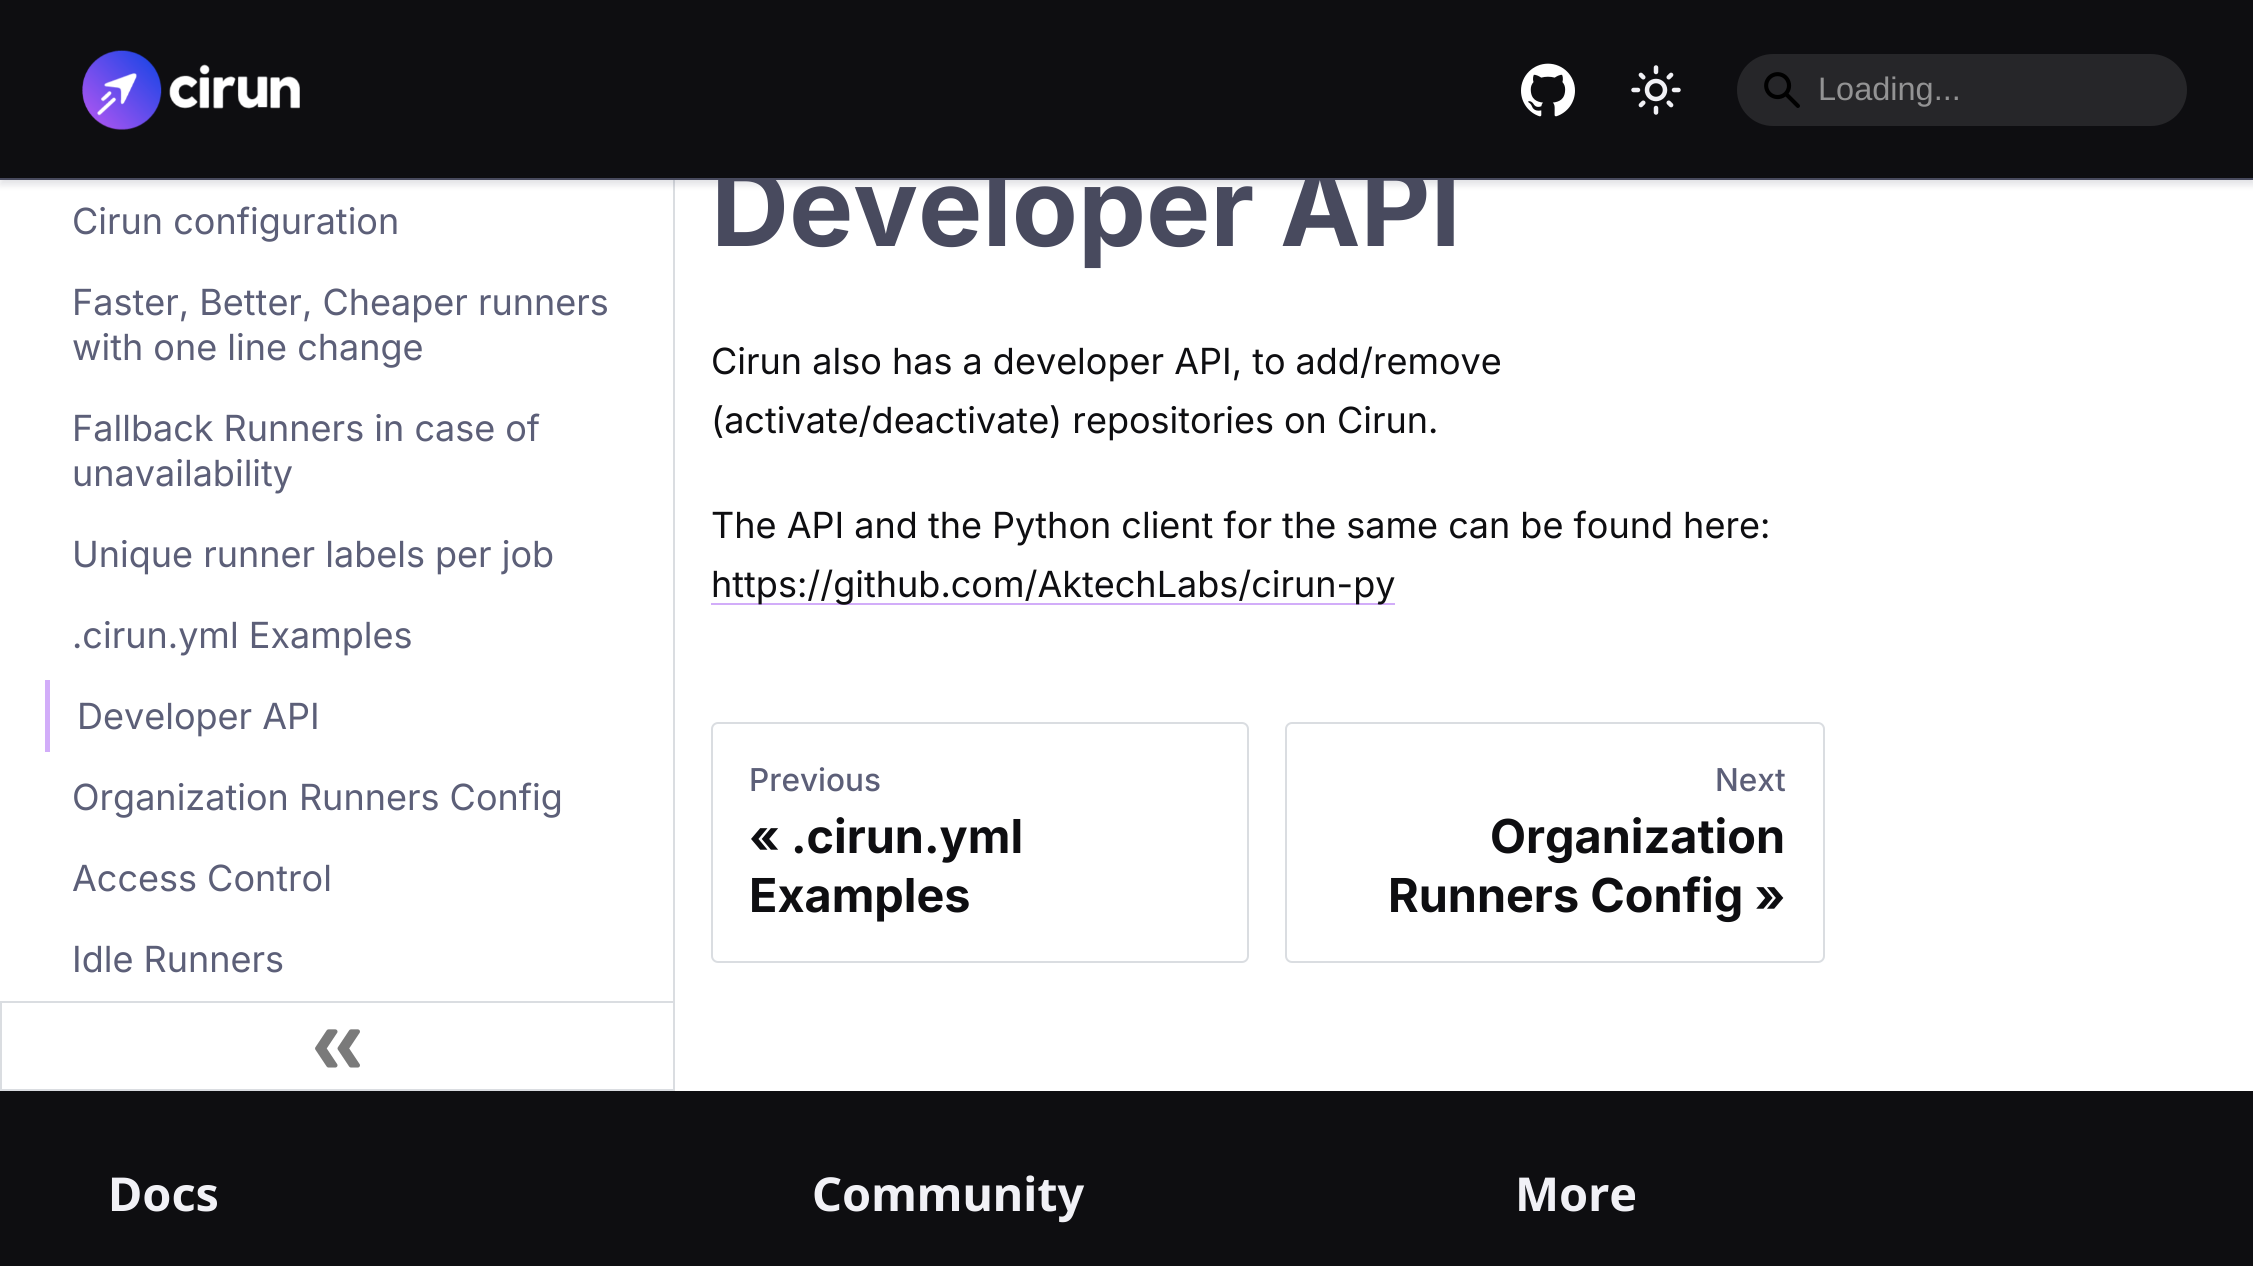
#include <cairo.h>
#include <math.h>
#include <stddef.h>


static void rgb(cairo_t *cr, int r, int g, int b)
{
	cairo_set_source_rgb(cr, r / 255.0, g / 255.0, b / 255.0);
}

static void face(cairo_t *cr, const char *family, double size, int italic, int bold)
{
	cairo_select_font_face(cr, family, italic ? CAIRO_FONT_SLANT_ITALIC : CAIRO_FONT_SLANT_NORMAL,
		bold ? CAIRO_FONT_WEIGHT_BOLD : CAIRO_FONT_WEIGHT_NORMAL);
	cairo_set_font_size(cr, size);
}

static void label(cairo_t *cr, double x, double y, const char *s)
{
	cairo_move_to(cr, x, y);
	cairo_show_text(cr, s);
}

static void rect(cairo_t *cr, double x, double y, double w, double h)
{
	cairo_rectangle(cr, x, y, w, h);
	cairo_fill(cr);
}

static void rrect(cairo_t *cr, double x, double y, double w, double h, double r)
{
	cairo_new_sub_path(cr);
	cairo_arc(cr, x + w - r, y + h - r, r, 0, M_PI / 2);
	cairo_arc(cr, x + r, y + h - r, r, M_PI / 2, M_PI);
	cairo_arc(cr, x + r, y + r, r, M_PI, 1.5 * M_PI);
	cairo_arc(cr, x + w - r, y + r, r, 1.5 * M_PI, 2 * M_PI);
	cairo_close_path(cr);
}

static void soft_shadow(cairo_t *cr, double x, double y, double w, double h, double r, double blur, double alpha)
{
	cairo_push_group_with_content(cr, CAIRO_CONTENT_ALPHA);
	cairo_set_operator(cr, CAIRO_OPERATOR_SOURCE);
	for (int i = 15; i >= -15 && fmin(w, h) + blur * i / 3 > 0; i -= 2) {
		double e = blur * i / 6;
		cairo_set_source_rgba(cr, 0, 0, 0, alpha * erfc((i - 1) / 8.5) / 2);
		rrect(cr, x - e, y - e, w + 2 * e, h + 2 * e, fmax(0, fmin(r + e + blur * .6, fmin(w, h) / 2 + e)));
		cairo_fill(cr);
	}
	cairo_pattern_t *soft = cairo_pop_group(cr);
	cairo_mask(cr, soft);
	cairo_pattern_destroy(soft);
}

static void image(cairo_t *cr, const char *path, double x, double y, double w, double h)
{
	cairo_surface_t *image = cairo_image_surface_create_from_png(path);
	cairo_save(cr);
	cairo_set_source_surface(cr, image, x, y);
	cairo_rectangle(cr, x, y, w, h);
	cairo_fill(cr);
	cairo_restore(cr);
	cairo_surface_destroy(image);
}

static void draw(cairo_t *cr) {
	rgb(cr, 255, 255, 255);
	cairo_paint(cr);
	rgb(cr, 218, 221, 225);
	rect(cr, 673, 180, 2, 821);
	rgb(cr, 72, 74, 94);
	soft_shadow(cr, 0, 5, 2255, 180, 0, 3.5, 0.16);
	face(cr, "Inter", 108, 0, 1);
	rgb(cr, 72, 74, 94);
	label(cr, 711, 246, "Developer API");
	rgb(cr, 14, 14, 17);
	rect(cr, 0, 0, 2253, 178);
	rgb(cr, 72, 74, 94);
	rect(cr, 0, 178, 2253, 2);
	image(cr, "image0.png", 82, 50, 218, 80);
	image(cr, "image1.png", 1521, 63, 54, 54);
	image(cr, "image2.png", 1631, 65, 50, 50);
	rgb(cr, 38, 38, 41);
	rrect(cr, 1737, 54, 450, 72, 36);
	cairo_fill(cr);
	image(cr, "image3.png", 1764, 72, 36, 36);
	face(cr, "Liberation Sans", 32.5, 0, 0);
	rgb(cr, 147, 147, 148);
	label(cr, 1818, 100, "Loading...");
	face(cr, "Inter", 36, 0, 0);
	rgb(cr, 92, 95, 120);
	label(cr, 72, 234, "Cirun configuration");
	label(cr, 72, 315, "Faster, Better, Cheaper runners");
	label(cr, 72, 360, "with one line change");
	label(cr, 72, 441, "Fallback Runners in case of");
	label(cr, 72, 486, "unavailability");
	label(cr, 72, 567, "Unique runner labels per job");
	label(cr, 72, 648, ".cirun.yml Examples");
	rgb(cr, 210, 173, 249);
	rect(cr, 45, 680, 5, 72);
	rgb(cr, 92, 95, 120);
	label(cr, 77, 729, "Developer API");
	label(cr, 72, 810, "Organization Runners Config");
	label(cr, 72, 891, "Access Control");
	label(cr, 72, 972, "Idle Runners");
	cairo_rectangle(cr, 1, 1002, 673, 88);
	rgb(cr, 218, 221, 225);
	cairo_stroke(cr);
	image(cr, "image4.png", 315, 1029, 45, 39);
	rgb(cr, 14, 14, 17);
	label(cr, 711, 374, "Cirun also has a developer API, to add/remove");
	label(cr, 711, 433, "(activate/deactivate) repositories on Cirun.");
	label(cr, 711, 538, "The API and the Python client for the same can be found here:");
	rgb(cr, 210, 173, 249);
	rect(cr, 711, 603, 684, 2);
	rgb(cr, 14, 14, 17);
	label(cr, 711, 597, "https://github.com/AktechLabs/cirun-py");
	rrect(cr, 712, 723, 536, 239, 6);
	rgb(cr, 218, 221, 225);
	cairo_stroke(cr);
	face(cr, "Inter Medium", 31.5, 0, 0);
	rgb(cr, 92, 95, 120);
	label(cr, 749, 791, "Previous");
	face(cr, "Inter", 46.75, 0, 1);
	rgb(cr, 14, 14, 17);
	label(cr, 749, 853, "« .cirun.yml");
	label(cr, 749, 912, "Examples");
	rrect(cr, 1286, 723, 538, 239, 6);
	rgb(cr, 218, 221, 225);
	cairo_stroke(cr);
	face(cr, "Inter Medium", 31.5, 0, 0);
	rgb(cr, 92, 95, 120);
	label(cr, 1715, 791, "Next");
	face(cr, "Inter", 46.75, 0, 1);
	rgb(cr, 14, 14, 17);
	label(cr, 1490, 853, "Organization");
	label(cr, 1388, 912, "Runners Config »");
	rect(cr, 0, 1091, 2253, 175);
	face(cr, "Noto Sans", 46.75, 0, 1);
	rgb(cr, 241, 241, 246);
	label(cr, 108, 1211, "Docs");
	label(cr, 812, 1211, "Community");
	label(cr, 1515, 1211, "More");
}

int main(void) {
	cairo_surface_t *surface = cairo_image_surface_create(CAIRO_FORMAT_RGB24, 2253, 1266);
	cairo_t *cr = cairo_create(surface);
	cairo_font_options_t *options = cairo_font_options_create();
	cairo_font_options_set_hint_metrics(options, CAIRO_HINT_METRICS_OFF);
	cairo_font_options_set_hint_style(options, CAIRO_HINT_STYLE_NONE);
	cairo_set_font_options(cr, options);
	cairo_set_miter_limit(cr, 4);
	draw(cr);
	cairo_surface_write_to_png(surface, "render.png");
	cairo_font_options_destroy(options);
	cairo_destroy(cr);
	cairo_surface_destroy(surface);
	return 0;
}
